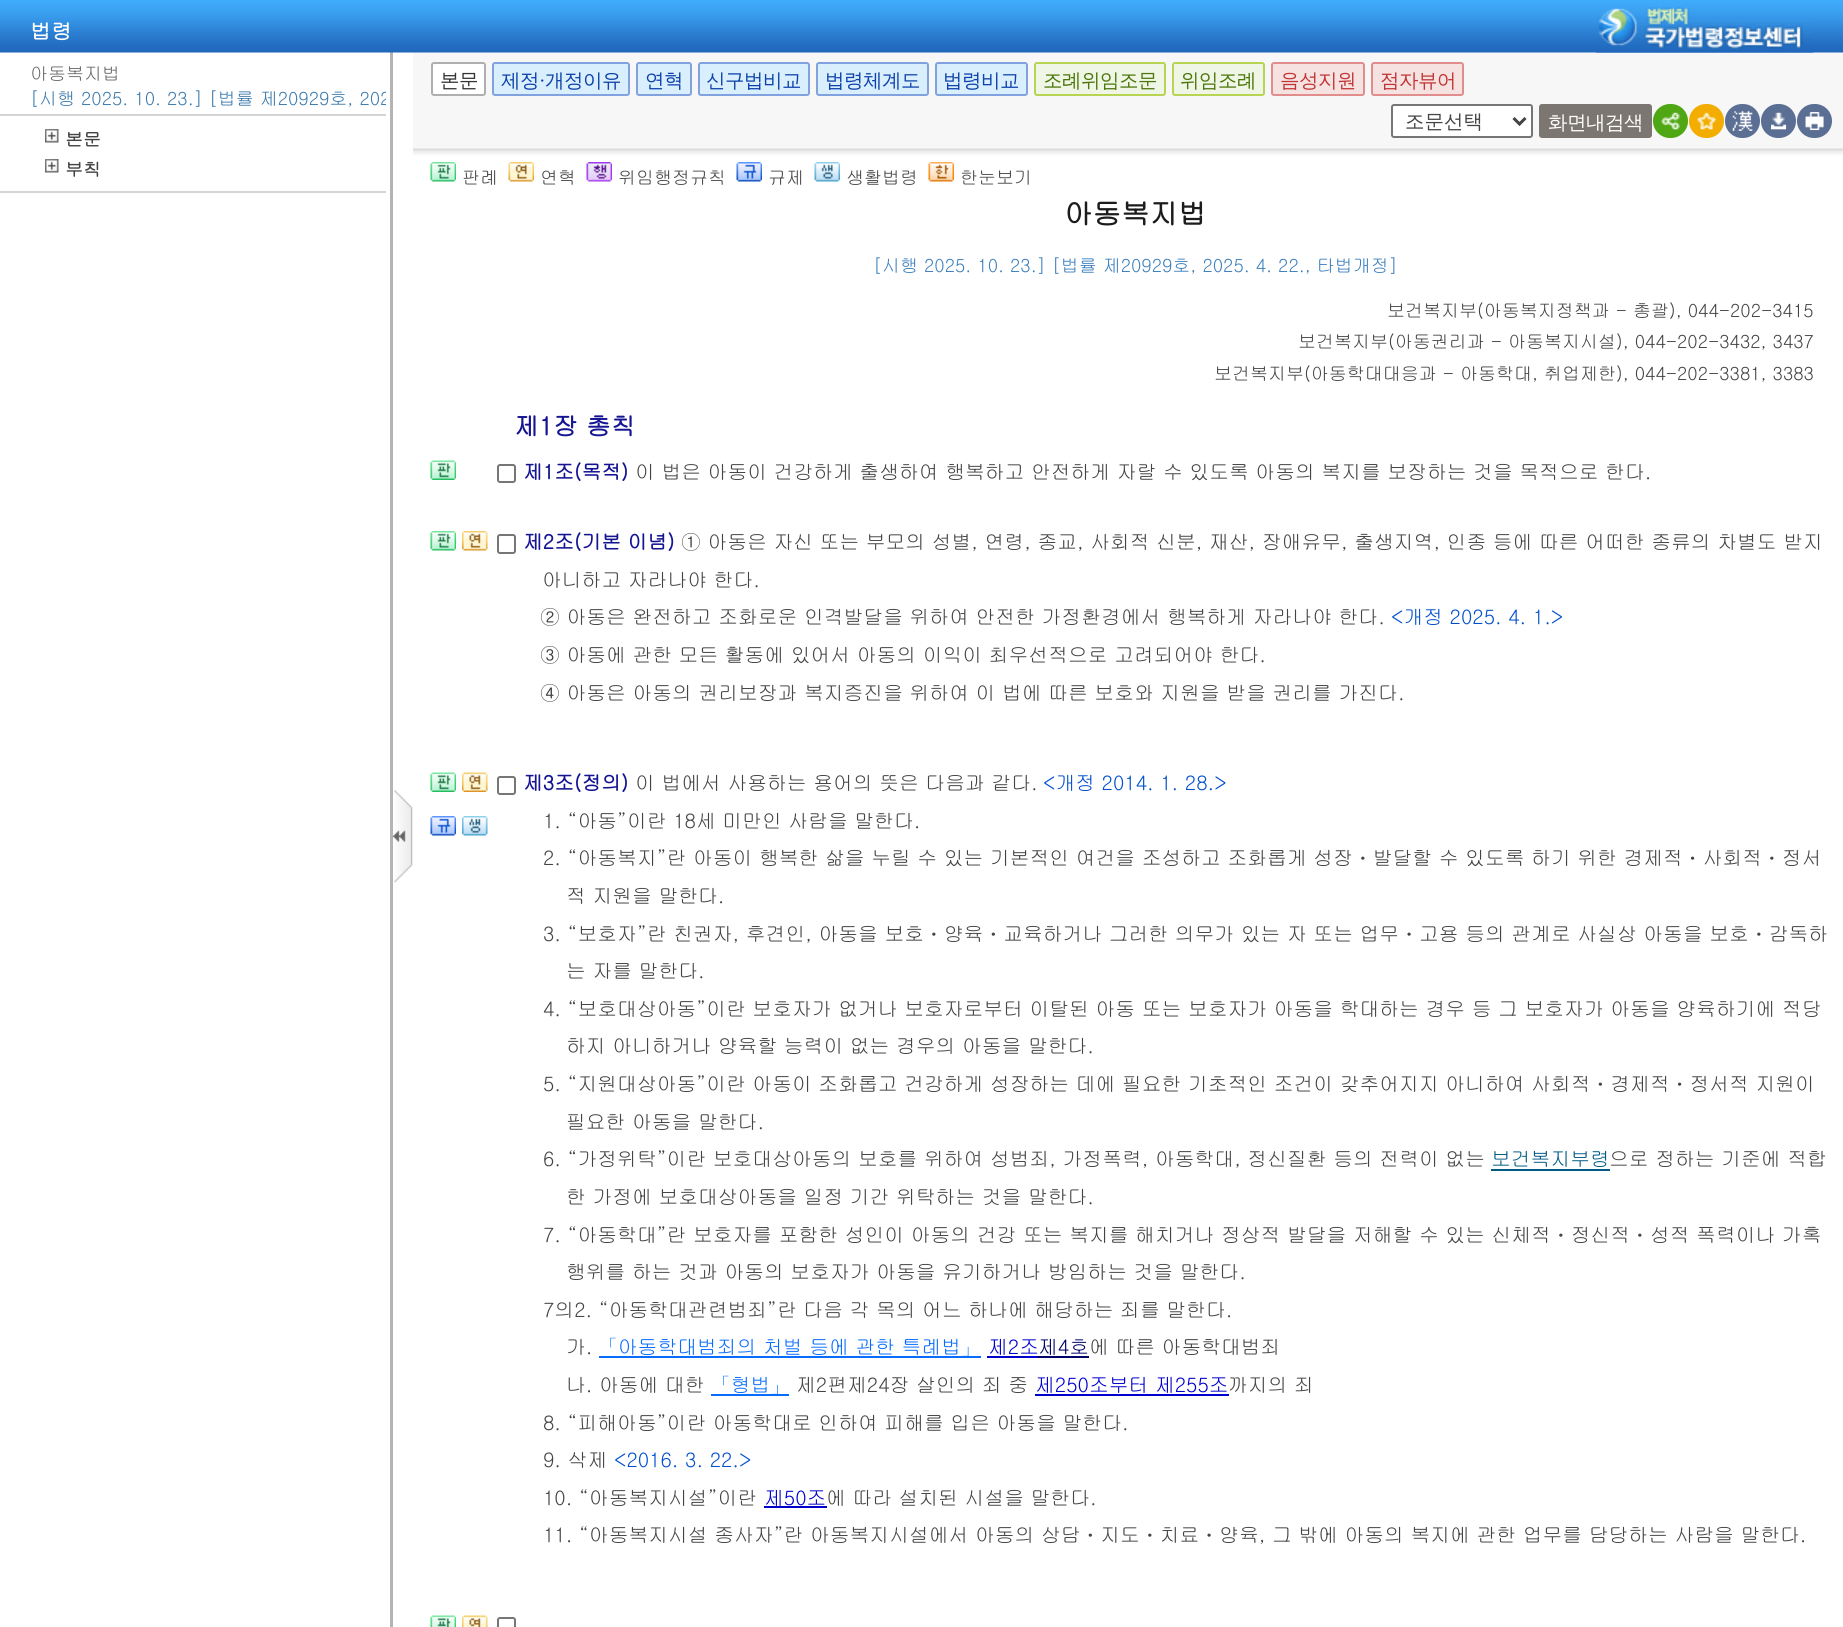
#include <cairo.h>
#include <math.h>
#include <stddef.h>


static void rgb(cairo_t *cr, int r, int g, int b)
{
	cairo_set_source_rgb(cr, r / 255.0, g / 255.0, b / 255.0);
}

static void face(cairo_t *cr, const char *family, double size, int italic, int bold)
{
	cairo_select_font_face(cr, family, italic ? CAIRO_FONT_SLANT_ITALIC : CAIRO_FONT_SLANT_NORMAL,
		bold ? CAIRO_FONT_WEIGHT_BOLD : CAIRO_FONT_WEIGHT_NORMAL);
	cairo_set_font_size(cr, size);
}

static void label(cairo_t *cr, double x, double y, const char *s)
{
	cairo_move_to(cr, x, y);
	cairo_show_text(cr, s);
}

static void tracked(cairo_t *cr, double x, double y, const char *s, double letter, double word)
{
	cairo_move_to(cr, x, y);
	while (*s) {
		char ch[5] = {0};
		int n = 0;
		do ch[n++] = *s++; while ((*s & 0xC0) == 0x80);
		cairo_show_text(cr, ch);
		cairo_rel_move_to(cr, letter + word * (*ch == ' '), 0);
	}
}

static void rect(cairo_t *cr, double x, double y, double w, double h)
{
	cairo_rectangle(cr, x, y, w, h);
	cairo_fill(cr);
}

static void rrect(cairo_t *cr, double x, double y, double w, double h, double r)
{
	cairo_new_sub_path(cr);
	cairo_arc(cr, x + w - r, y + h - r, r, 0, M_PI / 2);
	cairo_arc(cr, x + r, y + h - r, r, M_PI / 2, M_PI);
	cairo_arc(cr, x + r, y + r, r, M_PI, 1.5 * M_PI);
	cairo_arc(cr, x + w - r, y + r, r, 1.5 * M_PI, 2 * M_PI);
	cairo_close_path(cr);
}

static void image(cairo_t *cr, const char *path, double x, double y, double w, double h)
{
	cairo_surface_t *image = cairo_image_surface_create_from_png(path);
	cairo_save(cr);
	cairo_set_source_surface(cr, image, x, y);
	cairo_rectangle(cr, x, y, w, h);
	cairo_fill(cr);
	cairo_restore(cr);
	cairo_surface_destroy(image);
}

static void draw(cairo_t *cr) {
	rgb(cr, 255, 255, 255);
	cairo_paint(cr);
	rgb(cr, 247, 247, 247);
	rect(cr, 413, 52, 1430, 103);
	rgb(cr, 180, 180, 180);
	rect(cr, 390, 51, 3, 1576);
	image(cr, "image0.png", 0, 0, 1843, 53);
	face(cr, "Gulim", 21, 0, 1);
	rgb(cr, 255, 255, 255);
	label(cr, 30, 39, "법령");
	image(cr, "image1.png", 1596, 7, 218, 46);
	rgb(cr, 212, 212, 212);
	rect(cr, 0, 191, 386, 2);
	face(cr, "Gulim", 18, 0, 0);
	rgb(cr, 102, 102, 102);
	label(cr, 30, 80, "아동복지법");
	cairo_save(cr);
	cairo_rectangle(cr, 0, 51, 386, 1568);
	cairo_clip(cr);
	rgb(cr, 60, 122, 172);
	label(cr, 30, 105, "[시행 2025. 10. 23.] [법률 제20929호, 202");
	cairo_restore(cr);
	rgb(cr, 212, 212, 212);
	rect(cr, 0, 114, 386, 2);
	image(cr, "image2.png", 45, 129, 14, 14);
	face(cr, "Gulim", 18, 0, 1);
	rgb(cr, 68, 68, 68);
	label(cr, 65, 146, "본문");
	image(cr, "image2.png", 45, 159, 14, 14);
	label(cr, 65, 176, "부칙");
	image(cr, "image3.png", 413, 148, 1430, 6);
	rgb(cr, 255, 255, 255);
	rrect(cr, 432, 63, 53, 32, 2);
	cairo_fill_preserve(cr);
	rgb(cr, 175, 175, 175);
	cairo_stroke(cr);
	face(cr, "WenQuanYi Zen Hei Medium", 19.5, 0, 0);
	rgb(cr, 51, 51, 51);
	tracked(cr, 440, 87, "본문", -0.5, 0);
	rgb(cr, 217, 239, 253);
	rrect(cr, 493, 63, 136, 32, 2);
	cairo_fill_preserve(cr);
	rgb(cr, 129, 162, 223);
	cairo_stroke(cr);
	rgb(cr, 13, 65, 171);
	tracked(cr, 501, 87, "제정", -0.5, 0);
	face(cr, "Liberation Serif", 19.5, 0, 0);
	tracked(cr, 539, 87, "·", -0.5, 0);
	face(cr, "WenQuanYi Zen Hei Medium", 19.5, 0, 0);
	tracked(cr, 545, 87, "개정이유", -0.5, 0);
	rgb(cr, 217, 239, 253);
	rrect(cr, 637, 63, 54, 32, 2);
	cairo_fill_preserve(cr);
	rgb(cr, 129, 162, 223);
	cairo_stroke(cr);
	rgb(cr, 13, 65, 171);
	tracked(cr, 645, 87, "연혁", -0.5, 0);
	rgb(cr, 217, 239, 253);
	rrect(cr, 699, 63, 110, 32, 2);
	cairo_fill_preserve(cr);
	rgb(cr, 129, 162, 223);
	cairo_stroke(cr);
	rgb(cr, 13, 65, 171);
	tracked(cr, 706, 87, "신구법비교", -0.5, 0);
	rgb(cr, 217, 239, 253);
	rrect(cr, 817, 63, 111, 32, 2);
	cairo_fill_preserve(cr);
	rgb(cr, 129, 162, 223);
	cairo_stroke(cr);
	rgb(cr, 13, 65, 171);
	tracked(cr, 825, 87, "법령체계도", -0.5, 0);
	rgb(cr, 217, 239, 253);
	rrect(cr, 936, 63, 91, 32, 2);
	cairo_fill_preserve(cr);
	rgb(cr, 129, 162, 223);
	cairo_stroke(cr);
	rgb(cr, 13, 65, 171);
	tracked(cr, 943, 87, "법령비교", -0.5, 0);
	rgb(cr, 239, 246, 230);
	rrect(cr, 1035, 63, 130, 32, 2);
	cairo_fill_preserve(cr);
	rgb(cr, 184, 212, 83);
	cairo_stroke(cr);
	rgb(cr, 77, 119, 10);
	tracked(cr, 1043, 87, "조례위임조문", -0.5, 0);
	rgb(cr, 239, 246, 230);
	rrect(cr, 1173, 63, 91, 32, 2);
	cairo_fill_preserve(cr);
	rgb(cr, 184, 212, 83);
	cairo_stroke(cr);
	rgb(cr, 77, 119, 10);
	tracked(cr, 1180, 87, "위임조례", -0.5, 0);
	rgb(cr, 247, 226, 226);
	rrect(cr, 1272, 63, 92, 32, 2);
	cairo_fill_preserve(cr);
	rgb(cr, 226, 141, 141);
	cairo_stroke(cr);
	rgb(cr, 193, 53, 53);
	tracked(cr, 1280, 87, "음성지원", -0.5, 0);
	rgb(cr, 247, 226, 226);
	rrect(cr, 1372, 63, 91, 32, 2);
	cairo_fill_preserve(cr);
	rgb(cr, 226, 141, 141);
	cairo_stroke(cr);
	rgb(cr, 193, 53, 53);
	tracked(cr, 1380, 87, "점자뷰어", -0.5, 0);
	rgb(cr, 255, 255, 255);
	rrect(cr, 1392, 105, 140, 32, 2);
	cairo_fill_preserve(cr);
	rgb(cr, 118, 118, 118);
	cairo_stroke(cr);
	cairo_new_path(cr);
	cairo_move_to(cr, 1513.5, 118);
	cairo_line_to(cr, 1519.5, 124);
	cairo_line_to(cr, 1525.5, 118);
	rgb(cr, 68, 68, 68);
	cairo_set_line_width(cr, 3);
	cairo_stroke(cr);
	label(cr, 1405, 128, "조문선택");
	rgb(cr, 123, 118, 113);
	rrect(cr, 1540, 105, 111, 32, 2);
	cairo_fill_preserve(cr);
	cairo_set_line_width(cr, 2);
	cairo_stroke(cr);
	rgb(cr, 255, 255, 255);
	tracked(cr, 1548, 129, "화면내검색", -0.5, 0);
	rgb(cr, 78, 167, 19);
	rrect(cr, 1653, 104, 35, 34, 17);
	cairo_fill(cr);
	image(cr, "image4.png", 1661, 112, 19, 18);
	rgb(cr, 243, 172, 0);
	rrect(cr, 1689, 104, 35, 34, 17);
	cairo_fill(cr);
	image(cr, "image5.png", 1697, 112, 19, 18);
	rgb(cr, 91, 110, 147);
	rrect(cr, 1725, 104, 35, 34, 17);
	cairo_fill(cr);
	image(cr, "image6.png", 1732, 111, 21, 20);
	rrect(cr, 1761, 104, 35, 34, 17);
	cairo_fill(cr);
	image(cr, "image7.png", 1771, 112, 16, 18);
	rrect(cr, 1797, 104, 35, 34, 17);
	cairo_fill(cr);
	image(cr, "image8.png", 1805, 112, 19, 19);
	image(cr, "image9.png", 430, 162, 26, 20);
	face(cr, "Gulim", 18, 0, 0);
	rgb(cr, 68, 68, 68);
	label(cr, 462, 184, "판례");
	image(cr, "image10.png", 508, 162, 26, 20);
	label(cr, 540, 184, "연혁");
	image(cr, "image11.png", 586, 162, 26, 20);
	label(cr, 618, 184, "위임행정규칙");
	image(cr, "image12.png", 736, 162, 26, 20);
	label(cr, 768, 184, "규제");
	image(cr, "image13.png", 814, 162, 26, 20);
	label(cr, 846, 184, "생활법령");
	image(cr, "image14.png", 928, 162, 26, 20);
	label(cr, 960, 184, "한눈보기");
	face(cr, "Gulim", 28.5, 0, 1);
	rgb(cr, 28, 28, 28);
	label(cr, 1064, 224, "아동복지법");
	face(cr, "Gulim", 18, 0, 0);
	rgb(cr, 60, 127, 188);
	label(cr, 873, 272, "[시행 2025. 10. 23.] [법률 제20929호, 2025. 4. 22., 타법개정]");
	rgb(cr, 68, 68, 68);
	label(cr, 1387, 317, "보건복지부(아동복지정책과 - 총괄), 044-202-3415");
	label(cr, 1298, 348, "보건복지부(아동권리과 - 아동복지시설), 044-202-3432, 3437");
	label(cr, 1214, 380, "보건복지부(아동학대대응과 - 아동학대, 취업제한), 044-202-3381, 3383");
	face(cr, "Gulim", 24.75, 0, 1);
	rgb(cr, 21, 21, 148);
	label(cr, 514, 435, "제1장 총칙");
	image(cr, "image15.png", 430, 460, 26, 20);
	rrect(cr, 498, 465, 17, 17, 2);
	rgb(cr, 118, 118, 118);
	cairo_stroke(cr);
	face(cr, "Gulim", 19.8, 0, 1);
	rgb(cr, 21, 21, 148);
	label(cr, 523, 479, "제1조(목적)");
	face(cr, "Gulim", 19.8, 0, 0);
	rgb(cr, 68, 68, 68);
	label(cr, 635, 479, "이 법은 아동이 건강하게 출생하여 행복하고 안전하게 자랄 수 있도록 아동의 복지를 보장하는 것을 목적으로 한다.");
	image(cr, "image9.png", 430, 531, 26, 20);
	image(cr, "image16.png", 462, 531, 26, 20);
	rrect(cr, 498, 535, 17, 18, 2);
	rgb(cr, 118, 118, 118);
	cairo_stroke(cr);
	face(cr, "Gulim", 19.8, 0, 1);
	rgb(cr, 21, 21, 148);
	label(cr, 523, 549, "제2조(기본 이념)");
	face(cr, "Gulim", 19.8, 0, 0);
	rgb(cr, 68, 68, 68);
	label(cr, 681, 549, "① 아동은 자신 또는 부모의 성별, 연령, 종교, 사회적 신분, 재산, 장애유무, 출생지역, 인종 등에 따른 어떠한 종류의 차별도 받지");
	label(cr, 542, 587, "아니하고 자라나야 한다.");
	label(cr, 540, 624, "② 아동은 완전하고 조화로운 인격발달을 위하여 안전한 가정환경에서 행복하게 자라나야 한다.");
	rgb(cr, 2, 79, 206);
	label(cr, 1391, 624, "<개정 2025. 4. 1.>");
	rgb(cr, 68, 68, 68);
	label(cr, 540, 662, "③ 아동에 관한 모든 활동에 있어서 아동의 이익이 최우선적으로 고려되어야 한다.");
	label(cr, 540, 700, "④ 아동은 아동의 권리보장과 복지증진을 위하여 이 법에 따른 보호와 지원을 받을 권리를 가진다.");
	image(cr, "image15.png", 430, 772, 26, 20);
	image(cr, "image17.png", 462, 772, 26, 20);
	image(cr, "image12.png", 430, 816, 26, 20);
	image(cr, "image18.png", 462, 816, 26, 20);
	rrect(cr, 498, 777, 17, 17, 2);
	rgb(cr, 118, 118, 118);
	cairo_stroke(cr);
	face(cr, "Gulim", 19.8, 0, 1);
	rgb(cr, 21, 21, 148);
	label(cr, 523, 790, "제3조(정의)");
	face(cr, "Gulim", 19.8, 0, 0);
	rgb(cr, 68, 68, 68);
	label(cr, 635, 790, "이 법에서 사용하는 용어의 뜻은 다음과 같다.");
	rgb(cr, 2, 79, 206);
	label(cr, 1043, 790, "<개정 2014. 1. 28.>");
	rgb(cr, 68, 68, 68);
	label(cr, 543, 828, "1. “아동”이란 18세 미만인 사람을 말한다.");
	label(cr, 543, 865, "2. “아동복지”란 아동이 행복한 삶을 누릴 수 있는 기본적인 여건을 조성하고 조화롭게 성장ㆍ발달할 수 있도록 하기 위한 경제적ㆍ사회적ㆍ정서");
	label(cr, 566, 903, "적 지원을 말한다.");
	label(cr, 543, 941, "3. “보호자”란 친권자, 후견인, 아동을 보호ㆍ양육ㆍ교육하거나 그러한 의무가 있는 자 또는 업무ㆍ고용 등의 관계로 사실상 아동을 보호ㆍ감독하");
	label(cr, 566, 978, "는 자를 말한다.");
	label(cr, 543, 1016, "4. “보호대상아동”이란 보호자가 없거나 보호자로부터 이탈된 아동 또는 보호자가 아동을 학대하는 경우 등 그 보호자가 아동을 양육하기에 적당");
	label(cr, 566, 1053, "하지 아니하거나 양육할 능력이 없는 경우의 아동을 말한다.");
	label(cr, 543, 1091, "5. “지원대상아동”이란 아동이 조화롭고 건강하게 성장하는 데에 필요한 기초적인 조건이 갖추어지지 아니하여 사회적ㆍ경제적ㆍ정서적 지원이");
	label(cr, 566, 1129, "필요한 아동을 말한다.");
	label(cr, 543, 1166, "6. “가정위탁”이란 보호대상아동의 보호를 위하여 성범죄, 가정폭력, 아동학대, 정신질환 등의 전력이 없는");
	rgb(cr, 0, 90, 132);
	label(cr, 1491, 1166, "보건복지부령");
	rect(cr, 1491, 1169, 119, 2);
	rgb(cr, 68, 68, 68);
	label(cr, 1609, 1166, "으로 정하는 기준에 적합");
	label(cr, 566, 1204, "한 가정에 보호대상아동을 일정 기간 위탁하는 것을 말한다.");
	label(cr, 543, 1242, "7. “아동학대”란 보호자를 포함한 성인이 아동의 건강 또는 복지를 해치거나 정상적 발달을 저해할 수 있는 신체적ㆍ정신적ㆍ성적 폭력이나 가혹");
	label(cr, 566, 1279, "행위를 하는 것과 아동의 보호자가 아동을 유기하거나 방임하는 것을 말한다.");
	label(cr, 543, 1317, "7의2. “아동학대관련범죄”란 다음 각 목의 어느 하나에 해당하는 죄를 말한다.");
	label(cr, 566, 1354, "가.");
	rgb(cr, 8, 109, 255);
	rect(cr, 599, 1356, 382, 2);
	label(cr, 598, 1354, "「아동학대범죄의 처벌 등에 관한 특례법」");
	rgb(cr, 0, 0, 205);
	label(cr, 988, 1354, "제2조");
	rect(cr, 987, 1356, 51, 2);
	rgb(cr, 0, 0, 105);
	label(cr, 1038, 1354, "제4호");
	rect(cr, 1038, 1356, 51, 2);
	rgb(cr, 68, 68, 68);
	label(cr, 1089, 1354, "에 따른 아동학대범죄");
	label(cr, 566, 1392, "나. 아동에 대한");
	rgb(cr, 8, 109, 255);
	rect(cr, 711, 1394, 78, 2);
	label(cr, 711, 1392, "「형법」");
	rgb(cr, 68, 68, 68);
	label(cr, 796, 1392, "제2편제24장 살인의 죄 중");
	rgb(cr, 0, 0, 205);
	label(cr, 1035, 1392, "제250조부터 제255조");
	rect(cr, 1035, 1394, 194, 2);
	rgb(cr, 68, 68, 68);
	label(cr, 1228, 1392, "까지의 죄");
	label(cr, 543, 1430, "8. “피해아동”이란 아동학대로 인하여 피해를 입은 아동을 말한다.");
	label(cr, 543, 1467, "9. 삭제");
	rgb(cr, 2, 79, 206);
	label(cr, 614, 1467, "<2016. 3. 22.>");
	rgb(cr, 68, 68, 68);
	label(cr, 543, 1505, "10. “아동복지시설”이란");
	rgb(cr, 0, 0, 205);
	label(cr, 764, 1505, "제50조");
	rect(cr, 764, 1506, 63, 2);
	rgb(cr, 68, 68, 68);
	label(cr, 826, 1505, "에 따라 설치된 시설을 말한다.");
	label(cr, 543, 1542, "11. “아동복지시설 종사자”란 아동복지시설에서 아동의 상담ㆍ지도ㆍ치료ㆍ양육, 그 밖에 아동의 복지에 관한 업무를 담당하는 사람을 말한다.");
	image(cr, "image19.png", 430, 1615, 26, 12);
	image(cr, "image20.png", 462, 1615, 26, 12);
	rrect(cr, 498, 1618, 17, 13, 2);
	rgb(cr, 118, 118, 118);
	cairo_stroke(cr);
	image(cr, "image21.png", 393, 790, 20, 93);
}

int main(void) {
	cairo_surface_t *surface = cairo_image_surface_create(CAIRO_FORMAT_RGB24, 1843, 1627);
	cairo_t *cr = cairo_create(surface);
	cairo_font_options_t *options = cairo_font_options_create();
	cairo_font_options_set_hint_metrics(options, CAIRO_HINT_METRICS_OFF);
	cairo_font_options_set_hint_style(options, CAIRO_HINT_STYLE_NONE);
	cairo_set_font_options(cr, options);
	cairo_set_miter_limit(cr, 4);
	draw(cr);
	cairo_surface_write_to_png(surface, "render.png");
	cairo_font_options_destroy(options);
	cairo_destroy(cr);
	cairo_surface_destroy(surface);
	return 0;
}
